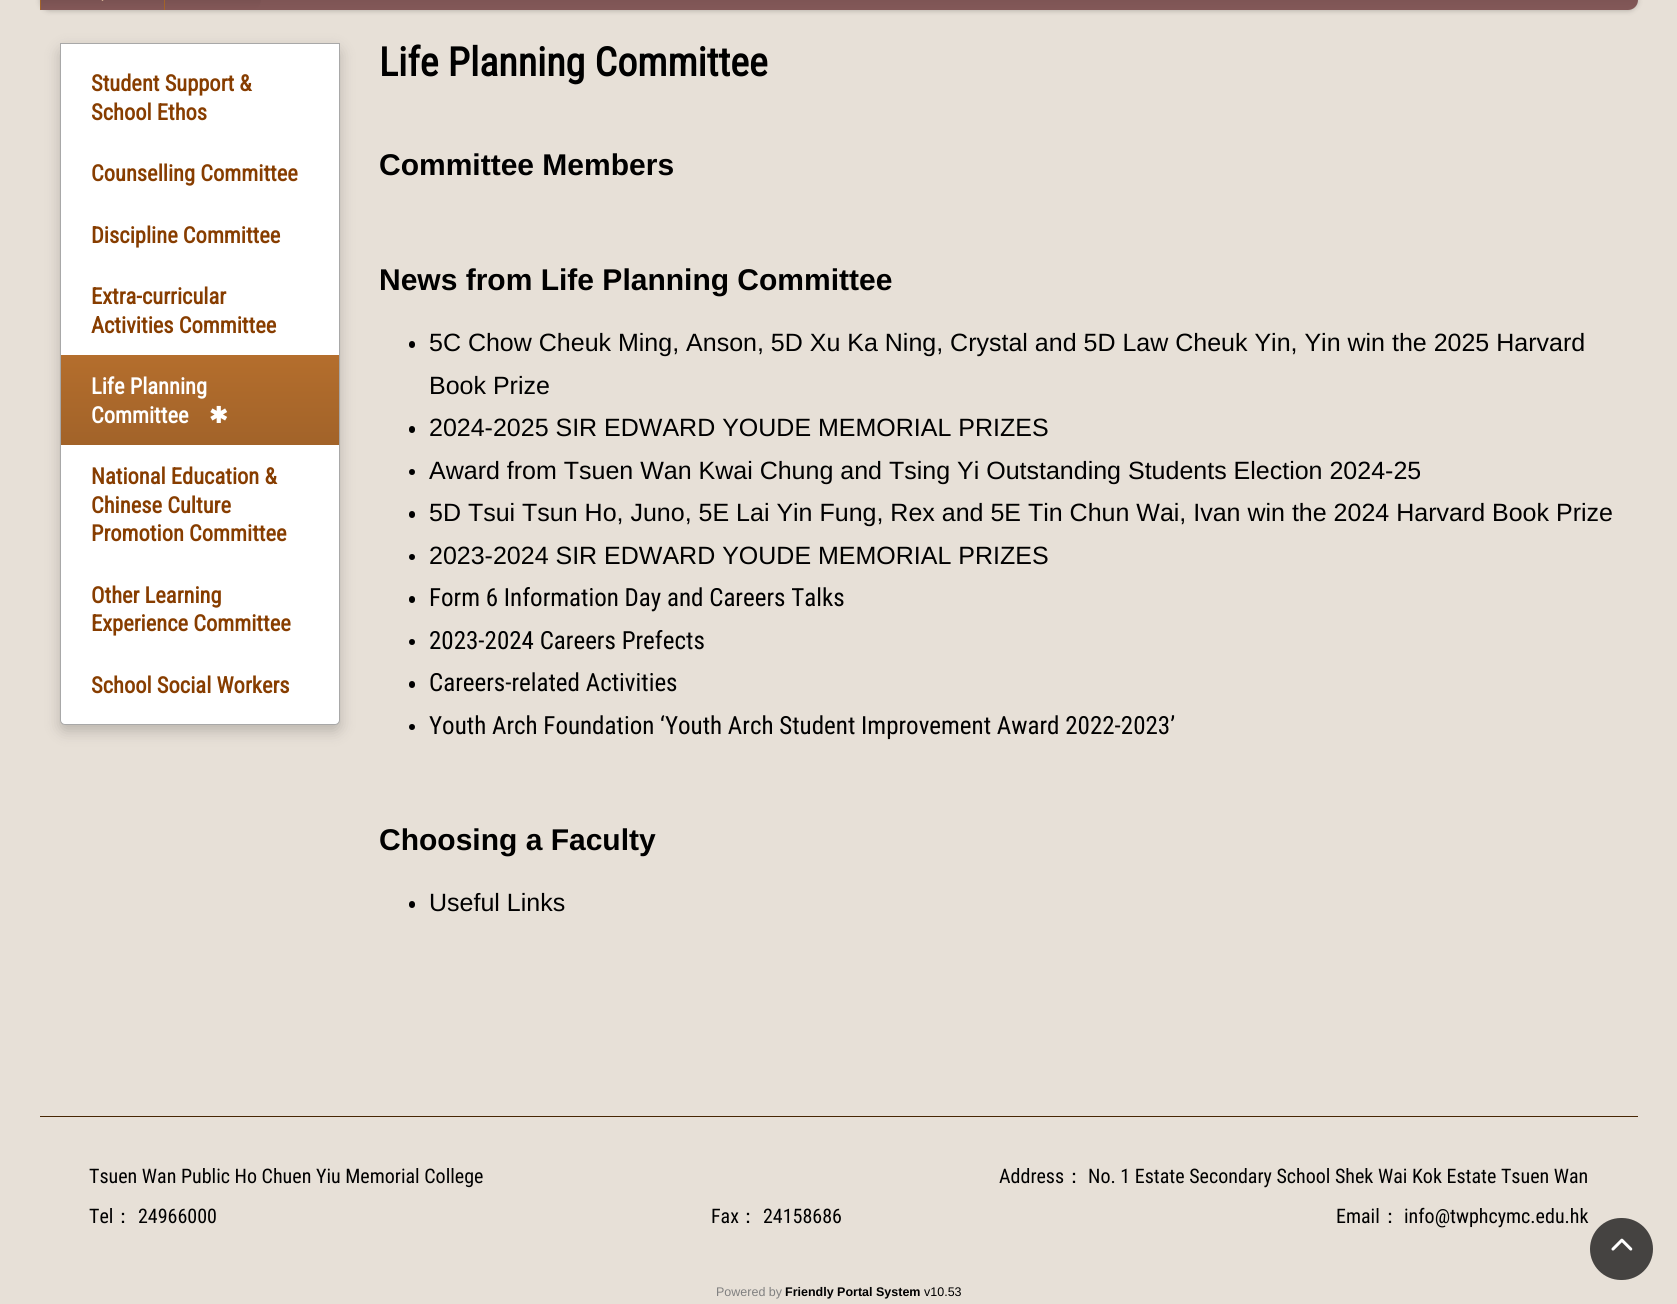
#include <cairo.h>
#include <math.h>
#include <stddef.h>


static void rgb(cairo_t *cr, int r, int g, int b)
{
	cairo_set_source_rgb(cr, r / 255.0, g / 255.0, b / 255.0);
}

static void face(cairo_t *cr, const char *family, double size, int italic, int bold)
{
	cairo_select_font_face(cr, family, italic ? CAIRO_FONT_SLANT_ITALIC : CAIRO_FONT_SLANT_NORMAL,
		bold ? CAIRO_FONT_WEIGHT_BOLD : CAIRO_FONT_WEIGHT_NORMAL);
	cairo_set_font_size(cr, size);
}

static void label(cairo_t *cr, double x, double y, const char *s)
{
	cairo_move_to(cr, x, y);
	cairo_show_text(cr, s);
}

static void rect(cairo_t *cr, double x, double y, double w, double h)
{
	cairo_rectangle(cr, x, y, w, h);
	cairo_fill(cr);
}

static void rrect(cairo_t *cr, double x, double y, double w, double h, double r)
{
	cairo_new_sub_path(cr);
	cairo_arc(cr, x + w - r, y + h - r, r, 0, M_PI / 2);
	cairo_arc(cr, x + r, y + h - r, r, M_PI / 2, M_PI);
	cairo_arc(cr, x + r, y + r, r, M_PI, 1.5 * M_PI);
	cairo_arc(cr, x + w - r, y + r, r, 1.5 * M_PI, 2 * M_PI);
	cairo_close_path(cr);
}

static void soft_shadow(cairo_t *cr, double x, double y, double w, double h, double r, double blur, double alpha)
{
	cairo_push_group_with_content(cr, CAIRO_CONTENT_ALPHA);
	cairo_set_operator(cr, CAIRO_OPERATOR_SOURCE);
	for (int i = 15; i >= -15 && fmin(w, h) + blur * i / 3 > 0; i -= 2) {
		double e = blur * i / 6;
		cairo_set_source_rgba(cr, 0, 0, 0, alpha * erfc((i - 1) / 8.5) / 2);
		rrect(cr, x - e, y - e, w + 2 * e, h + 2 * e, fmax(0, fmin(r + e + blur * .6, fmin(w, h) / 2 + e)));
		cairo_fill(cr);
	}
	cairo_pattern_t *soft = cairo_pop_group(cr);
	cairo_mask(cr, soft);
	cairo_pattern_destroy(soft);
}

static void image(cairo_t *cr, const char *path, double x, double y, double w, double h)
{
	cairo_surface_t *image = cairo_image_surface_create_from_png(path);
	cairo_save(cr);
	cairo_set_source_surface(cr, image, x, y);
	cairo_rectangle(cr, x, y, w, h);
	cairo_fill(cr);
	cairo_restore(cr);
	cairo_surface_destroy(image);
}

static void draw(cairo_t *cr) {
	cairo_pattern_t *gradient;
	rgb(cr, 231, 224, 215);
	cairo_paint(cr);
	rgb(cr, 0, 0, 0);
	soft_shadow(cr, 40, -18, 1598, 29, 10, 2.5, 0.2);
	gradient = cairo_pattern_create_linear(839, -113, 839, 10);
	cairo_pattern_add_color_stop_rgba(gradient, 0, 0.275, 0.2, 0.2, 1);
	cairo_pattern_add_color_stop_rgba(gradient, 1, 0.514, 0.345, 0.345, 1);
	cairo_set_source(cr, gradient);
	cairo_pattern_destroy(gradient);
	rrect(cr, 40, -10, 1598, 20, 10);
	cairo_fill(cr);
	rgb(cr, 162, 99, 41);
	rect(cr, 40, 0, 1, 10);
	gradient = cairo_pattern_create_linear(103, -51, 103, 10);
	cairo_pattern_add_color_stop_rgba(gradient, 0, 0.275, 0.2, 0.2, 1);
	cairo_pattern_add_color_stop_rgba(gradient, 1, 0.514, 0.345, 0.345, 1);
	cairo_set_source(cr, gradient);
	cairo_pattern_destroy(gradient);
	rect(cr, 41, 0, 123, 10);
	rgb(cr, 232, 195, 161);
	cairo_new_path(cr);
	cairo_move_to(cr, 96, -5);
	cairo_line_to(cr, 109, -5);
	cairo_line_to(cr, 102.5, 1);
	cairo_close_path(cr);
	cairo_fill(cr);
	rgb(cr, 162, 99, 41);
	rect(cr, 164, 0, 1, 10);
	gradient = cairo_pattern_create_linear(213, -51, 213, 10);
	cairo_pattern_add_color_stop_rgba(gradient, 0, 0.275, 0.2, 0.2, 1);
	cairo_pattern_add_color_stop_rgba(gradient, 1, 0.514, 0.345, 0.345, 1);
	cairo_set_source(cr, gradient);
	cairo_pattern_destroy(gradient);
	cairo_new_path(cr);
	cairo_move_to(cr, 165, -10);
	cairo_line_to(cr, 251, -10);
	cairo_curve_to(cr, 256.5, -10, 261, -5.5, 261, 0);
	cairo_curve_to(cr, 261, 5.5, 256.5, 10, 251, 10);
	cairo_line_to(cr, 165, 10);
	cairo_close_path(cr);
	cairo_fill(cr);
	face(cr, "Roboto Condensed", 40, 0, 1);
	rgb(cr, 0, 0, 0);
	label(cr, 379, 76, "Life Planning Committee");
	rgb(cr, 0, 0, 0);
	soft_shadow(cr, 60, 49, 280, 682, 5, 7.5, 0.2);
	rgb(cr, 255, 255, 255);
	cairo_new_path(cr);
	cairo_move_to(cr, 60.5, 43.5);
	cairo_line_to(cr, 339.5, 43.5);
	cairo_line_to(cr, 339.5, 720);
	cairo_curve_to(cr, 339.5, 722.5, 337.5, 724.5, 335, 724.5);
	cairo_line_to(cr, 65, 724.5);
	cairo_curve_to(cr, 62.5, 724.5, 60.5, 722.5, 60.5, 720);
	cairo_close_path(cr);
	cairo_fill_preserve(cr);
	rgb(cr, 168, 168, 168);
	cairo_set_line_width(cr, 1);
	cairo_stroke(cr);
	face(cr, "Roboto Condensed", 22.5, 0, 1);
	rgb(cr, 135, 61, 0);
	label(cr, 91, 91, "Student Support &");
	label(cr, 91, 120, "School Ethos");
	label(cr, 91, 181, "Counselling Committee");
	label(cr, 91, 243, "Discipline Committee");
	label(cr, 91, 304, "Extra-curricular");
	label(cr, 91, 333, "Activities Committee");
	gradient = cairo_pattern_create_linear(200, 355, 200, 445);
	cairo_pattern_add_color_stop_rgba(gradient, 0, 0.706, 0.431, 0.176, 1);
	cairo_pattern_add_color_stop_rgba(gradient, 1, 0.635, 0.388, 0.161, 1);
	cairo_set_source(cr, gradient);
	cairo_pattern_destroy(gradient);
	rect(cr, 61, 355, 278, 90);
	rgb(cr, 255, 255, 255);
	label(cr, 91, 394, "Life Planning");
	label(cr, 91, 423, "Committee");
	face(cr, "DejaVu Sans", 22.5, 0, 1);
	label(cr, 209, 423, "✱");
	face(cr, "Roboto Condensed", 22.5, 0, 1);
	rgb(cr, 135, 61, 0);
	label(cr, 91, 484, "National Education &");
	label(cr, 91, 513, "Chinese Culture");
	label(cr, 91, 541, "Promotion Committee");
	label(cr, 91, 603, "Other Learning");
	label(cr, 91, 631, "Experience Committee");
	label(cr, 91, 693, "School Social Workers");
	face(cr, "Liberation Sans", 30, 0, 1);
	rgb(cr, 0, 0, 0);
	label(cr, 379, 175, "Committee Members");
	label(cr, 379, 290, "News from Life Planning Committee");
	rrect(cr, 409, 341, 6, 7, 3);
	cairo_fill(cr);
	face(cr, "Liberation Sans", 25, 0, 0);
	label(cr, 429, 351, "5C Chow Cheuk Ming, Anson, 5D Xu Ka Ning, Crystal and 5D Law Cheuk Yin, Yin win the 2025 Harvard");
	label(cr, 429, 394, "Book Prize");
	rrect(cr, 409, 426, 6, 7, 3);
	cairo_fill(cr);
	label(cr, 429, 436, "2024-2025 SIR EDWARD YOUDE MEMORIAL PRIZES");
	cairo_new_path(cr);
	cairo_arc(cr, 412, 472, 3, 0, 2 * M_PI);
	cairo_fill(cr);
	label(cr, 429, 479, "Award from Tsuen Wan Kwai Chung and Tsing Yi Outstanding Students Election 2024-25");
	rrect(cr, 409, 511, 6, 7, 3);
	cairo_fill(cr);
	label(cr, 429, 521, "5D Tsui Tsun Ho, Juno, 5E Lai Yin Fung, Rex and 5E Tin Chun Wai, Ivan win the 2024 Harvard Book Prize");
	cairo_new_path(cr);
	cairo_arc(cr, 412, 557, 3, 0, 2 * M_PI);
	cairo_fill(cr);
	label(cr, 429, 564, "2023-2024 SIR EDWARD YOUDE MEMORIAL PRIZES");
	rrect(cr, 409, 596, 6, 7, 3);
	cairo_fill(cr);
	face(cr, "Roboto Condensed", 25, 0, 0);
	label(cr, 429, 606, "Form 6 Information Day and Careers Talks");
	cairo_new_path(cr);
	cairo_arc(cr, 412, 642, 3, 0, 2 * M_PI);
	cairo_fill(cr);
	label(cr, 429, 649, "2023-2024 Careers Prefects");
	rrect(cr, 409, 681, 6, 7, 3);
	cairo_fill(cr);
	label(cr, 429, 691, "Careers-related Activities");
	cairo_new_path(cr);
	cairo_arc(cr, 412, 727, 3, 0, 2 * M_PI);
	cairo_fill(cr);
	label(cr, 429, 734, "Youth Arch Foundation ‘Youth Arch Student Improvement Award 2022-2023’");
	face(cr, "Liberation Sans", 30, 0, 1);
	label(cr, 379, 850, "Choosing a Faculty");
	rrect(cr, 409, 901, 6, 7, 3);
	cairo_fill(cr);
	face(cr, "Liberation Sans", 25, 0, 0);
	label(cr, 429, 911, "Useful Links");
	rgb(cr, 71, 38, 4);
	rect(cr, 40, 1116, 1598, 1);
	face(cr, "Roboto Condensed", 20, 0, 0);
	rgb(cr, 0, 0, 0);
	label(cr, 89, 1183, "Tsuen Wan Public Ho Chuen Yiu Memorial College");
	label(cr, 999, 1183, "Address");
	face(cr, "WenQuanYi Zen Hei Medium", 20, 0, 0);
	label(cr, 1064, 1183, "：");
	face(cr, "Roboto Condensed", 20, 0, 0);
	label(cr, 1088, 1183, "No. 1 Estate Secondary School Shek Wai Kok Estate Tsuen Wan");
	label(cr, 89, 1223, "Tel");
	face(cr, "WenQuanYi Zen Hei Medium", 20, 0, 0);
	label(cr, 113, 1223, "：");
	face(cr, "Roboto Condensed", 20, 0, 0);
	label(cr, 138, 1223, "24966000");
	label(cr, 711, 1223, "Fax");
	face(cr, "WenQuanYi Zen Hei Medium", 20, 0, 0);
	label(cr, 738, 1223, "：");
	face(cr, "Roboto Condensed", 20, 0, 0);
	label(cr, 763, 1223, "24158686");
	label(cr, 1336, 1223, "Email");
	face(cr, "WenQuanYi Zen Hei Medium", 20, 0, 0);
	label(cr, 1380, 1223, "：");
	face(cr, "Roboto Condensed", 20, 0, 0);
	label(cr, 1404, 1223, "info@twphcymc.edu.hk");
	rgb(cr, 69, 67, 65);
	rrect(cr, 1590, 1218, 63, 62, 31);
	cairo_fill(cr);
	image(cr, "image0.png", 1611, 1238, 22, 13);
	face(cr, "Liberation Sans", 12.5, 0, 0);
	rgb(cr, 128, 128, 128);
	label(cr, 716, 1296, "Powered by");
	face(cr, "Liberation Sans", 12.5, 0, 1);
	rgb(cr, 0, 0, 0);
	label(cr, 785, 1296, "Friendly Portal System");
	face(cr, "Liberation Sans", 12.5, 0, 0);
	label(cr, 924, 1296, "v10.53");
}

int main(void) {
	cairo_surface_t *surface = cairo_image_surface_create(CAIRO_FORMAT_RGB24, 1677, 1304);
	cairo_t *cr = cairo_create(surface);
	cairo_font_options_t *options = cairo_font_options_create();
	cairo_font_options_set_hint_metrics(options, CAIRO_HINT_METRICS_OFF);
	cairo_font_options_set_hint_style(options, CAIRO_HINT_STYLE_NONE);
	cairo_set_font_options(cr, options);
	cairo_set_miter_limit(cr, 4);
	draw(cr);
	cairo_surface_write_to_png(surface, "render.png");
	cairo_font_options_destroy(options);
	cairo_destroy(cr);
	cairo_surface_destroy(surface);
	return 0;
}
